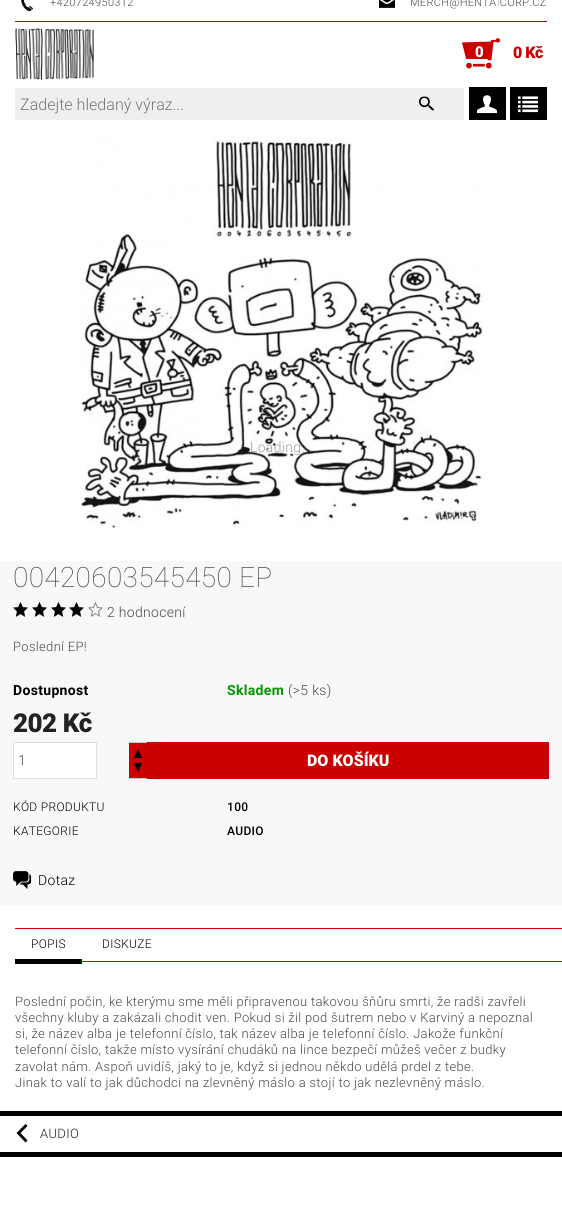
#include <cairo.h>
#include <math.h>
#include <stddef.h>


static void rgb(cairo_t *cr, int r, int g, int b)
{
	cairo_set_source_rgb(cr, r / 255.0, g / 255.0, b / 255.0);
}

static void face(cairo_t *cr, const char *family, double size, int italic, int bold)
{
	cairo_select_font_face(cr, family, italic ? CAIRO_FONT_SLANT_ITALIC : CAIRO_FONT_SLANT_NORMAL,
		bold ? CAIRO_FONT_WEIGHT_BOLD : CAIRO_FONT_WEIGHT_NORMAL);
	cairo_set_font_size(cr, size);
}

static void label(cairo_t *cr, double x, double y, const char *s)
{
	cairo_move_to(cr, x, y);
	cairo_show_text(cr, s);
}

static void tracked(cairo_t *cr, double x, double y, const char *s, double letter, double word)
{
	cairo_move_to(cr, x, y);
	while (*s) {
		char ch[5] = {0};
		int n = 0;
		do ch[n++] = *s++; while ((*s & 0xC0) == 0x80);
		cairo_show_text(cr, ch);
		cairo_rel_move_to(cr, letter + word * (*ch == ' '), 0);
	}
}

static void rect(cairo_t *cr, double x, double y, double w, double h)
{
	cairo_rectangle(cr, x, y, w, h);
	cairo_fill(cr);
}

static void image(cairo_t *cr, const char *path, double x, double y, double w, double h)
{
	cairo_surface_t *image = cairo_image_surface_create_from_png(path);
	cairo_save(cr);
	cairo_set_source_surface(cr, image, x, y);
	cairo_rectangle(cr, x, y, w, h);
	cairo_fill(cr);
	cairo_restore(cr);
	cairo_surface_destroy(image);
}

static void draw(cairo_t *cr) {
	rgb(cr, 255, 255, 255);
	cairo_paint(cr);
	rgb(cr, 203, 0, 0);
	rect(cr, 15, 21, 532, 1);
	image(cr, "image0.png", 21, 0, 12, 11);
	face(cr, "Roboto Light", 11, 0, 0);
	rgb(cr, 72, 72, 72);
	tracked(cr, 50, 6, "+420724950312", 0.32, 0);
	image(cr, "image1.png", 379, 0, 16, 8);
	tracked(cr, 410, 6, "MERCH@HENTAICORP.CZ", 0.32, 0);
	image(cr, "image2.png", 15, 28, 79, 52);
	image(cr, "image3.png", 462, 38, 38, 31);
	face(cr, "Roboto Black", 15, 0, 0);
	rgb(cr, 255, 255, 255);
	tracked(cr, 475, 57, "0", -0.5, 0);
	face(cr, "Roboto Black", 16, 0, 0);
	rgb(cr, 203, 0, 0);
	tracked(cr, 513, 58, "0 Kč", -0.5, 0);
	rgb(cr, 239, 239, 239);
	rect(cr, 15, 88, 449, 32);
	face(cr, "Roboto Light", 16.1, 0, 0);
	rgb(cr, 117, 117, 117);
	label(cr, 20, 110, "Zadejte hledaný výraz...");
	rgb(cr, 0, 0, 0);
	rect(cr, 419, 96, 15, 15);
	image(cr, "image4.png", 419, 95, 16, 17);
	rect(cr, 469, 87, 37, 33);
	image(cr, "image5.png", 477, 95, 20, 19);
	rect(cr, 510, 87, 37, 33);
	image(cr, "image6.png", 518, 96, 20, 17);
	image(cr, "image7.png", 80, 137, 405, 392);
	face(cr, "Roboto Light", 14, 0, 0);
	rgb(cr, 158, 158, 158);
	tracked(cr, 250, 452, "Loading...", 0.32, 0);
	rgb(cr, 248, 248, 248);
	rect(cr, 0, 561, 562, 344);
	face(cr, "Roboto Thin", 28, 0, 0);
	rgb(cr, 72, 72, 72);
	tracked(cr, 13, 587, "00420603545450 EP", 0.32, 0);
	image(cr, "image8.png", 13, 602, 15, 15);
	image(cr, "image8.png", 32, 602, 15, 15);
	image(cr, "image8.png", 51, 602, 15, 15);
	image(cr, "image8.png", 69, 602, 15, 15);
	image(cr, "image9.png", 88, 602, 15, 15);
	face(cr, "Roboto Light", 14, 0, 0);
	tracked(cr, 107, 617, "2 hodnocení", 0.32, 0);
	face(cr, "Roboto Light", 13, 0, 0);
	tracked(cr, 13, 651, "Poslední EP!", 0.32, 0);
	face(cr, "Roboto", 14, 0, 1);
	rgb(cr, 0, 0, 0);
	tracked(cr, 13, 695, "Dostupnost", 0.32, 0);
	rgb(cr, 0, 153, 1);
	tracked(cr, 227, 695, "Skladem", 0.32, 0);
	face(cr, "Roboto Light", 14, 0, 0);
	rgb(cr, 72, 72, 72);
	tracked(cr, 288, 695, "(>5 ks)", 0.32, 0);
	face(cr, "Roboto Black", 26, 0, 0);
	rgb(cr, 34, 34, 34);
	tracked(cr, 13, 732, "202 Kč", -0.5, 0);
	rgb(cr, 255, 255, 255);
	cairo_rectangle(cr, 13.5, 742.5, 83, 36);
	cairo_fill_preserve(cr);
	rgb(cr, 224, 224, 224);
	cairo_set_line_width(cr, 1);
	cairo_stroke(cr);
	face(cr, "Roboto Light", 14, 0, 0);
	rgb(cr, 72, 72, 72);
	label(cr, 18, 765, "1");
	rgb(cr, 203, 0, 0);
	rect(cr, 129, 743, 18, 35);
	rgb(cr, 198, 198, 198);
	rect(cr, 129, 742, 18, 1);
	rgb(cr, 0, 0, 0);
	cairo_new_path(cr);
	cairo_move_to(cr, 142, 758);
	cairo_line_to(cr, 134, 758);
	cairo_line_to(cr, 138, 749);
	cairo_close_path(cr);
	cairo_fill(cr);
	rgb(cr, 198, 198, 198);
	rect(cr, 129, 778, 18, 1);
	rgb(cr, 0, 0, 0);
	cairo_new_path(cr);
	cairo_move_to(cr, 134, 763);
	cairo_line_to(cr, 142, 763);
	cairo_line_to(cr, 138, 772);
	cairo_close_path(cr);
	cairo_fill(cr);
	rgb(cr, 203, 0, 0);
	rect(cr, 147, 742, 402, 37);
	face(cr, "Roboto Black", 16, 0, 0);
	rgb(cr, 255, 255, 255);
	label(cr, 307, 766, "DO KOŠÍKU");
	face(cr, "Roboto Light", 12, 0, 0);
	rgb(cr, 0, 0, 0);
	tracked(cr, 13, 811, "KÓD PRODUKTU", 0.32, 0);
	face(cr, "Roboto Medium", 12, 0, 0);
	tracked(cr, 227, 811, "100", 0.32, 0);
	face(cr, "Roboto Light", 12, 0, 0);
	tracked(cr, 13, 835, "KATEGORIE", 0.32, 0);
	face(cr, "Roboto Medium", 12, 0, 0);
	tracked(cr, 227, 835, "AUDIO", 0.32, 0);
	image(cr, "image10.png", 13, 871, 19, 18);
	face(cr, "Roboto Light", 14, 0, 0);
	tracked(cr, 38, 885, "Dotaz", 0.32, 0);
	rgb(cr, 203, 0, 0);
	rect(cr, 15, 928, 547, 1);
	rect(cr, 82, 961, 480, 1);
	rgb(cr, 0, 0, 0);
	rect(cr, 15, 959, 67, 5);
	face(cr, "Roboto Light", 12, 0, 0);
	tracked(cr, 31, 948, "POPIS", 0.32, 0);
	tracked(cr, 102, 948, "DISKUZE", 0.32, 0);
	face(cr, "Roboto Light", 13, 0, 0);
	rgb(cr, 72, 72, 72);
	tracked(cr, 15, 1006, "Poslední počin, ke kterýmu sme měli připravenou takovou šňůru smrti, že radši zavřeli", 0.32, 0);
	tracked(cr, 15, 1022, "všechny kluby a zakázali chodit ven. Pokud si žil pod šutrem nebo v Karviný a nepoznal", 0.32, 0);
	tracked(cr, 15, 1038, "si, že název alba je telefonní číslo, tak název alba je telefonní číslo. Jakože funkční", 0.32, 0);
	tracked(cr, 15, 1054, "telefonní číslo, takže místo vysírání chudáků na lince bezpečí můžeš večer z budky", 0.32, 0);
	tracked(cr, 15, 1071, "zavolat nám. Aspoň uvidíš, jaký to je, když si jednou někdo udělá prdel z tebe.", 0.32, 0);
	tracked(cr, 15, 1087, "Jinak to valí to jak důchodci na zlevněný máslo a stojí to jak nezlevněný máslo.", 0.32, 0);
	rgb(cr, 0, 0, 0);
	rect(cr, 0, 1111, 562, 5);
	rect(cr, 0, 1152, 562, 5);
	cairo_new_path(cr);
	cairo_move_to(cr, 25.5, 1124);
	cairo_line_to(cr, 16.5, 1133);
	cairo_line_to(cr, 25.5, 1142.5);
	cairo_line_to(cr, 27.5, 1140.5);
	cairo_line_to(cr, 20.5, 1133);
	cairo_line_to(cr, 27.5, 1126);
	cairo_close_path(cr);
	cairo_fill(cr);
	rgb(cr, 34, 34, 34);
	tracked(cr, 40, 1138, "AUDIO", 0.32, 0);
}

int main(void) {
	cairo_surface_t *surface = cairo_image_surface_create(CAIRO_FORMAT_RGB24, 562, 1220);
	cairo_t *cr = cairo_create(surface);
	cairo_font_options_t *options = cairo_font_options_create();
	cairo_font_options_set_hint_metrics(options, CAIRO_HINT_METRICS_OFF);
	cairo_font_options_set_hint_style(options, CAIRO_HINT_STYLE_NONE);
	cairo_set_font_options(cr, options);
	cairo_set_miter_limit(cr, 4);
	draw(cr);
	cairo_surface_write_to_png(surface, "render.png");
	cairo_font_options_destroy(options);
	cairo_destroy(cr);
	cairo_surface_destroy(surface);
	return 0;
}
